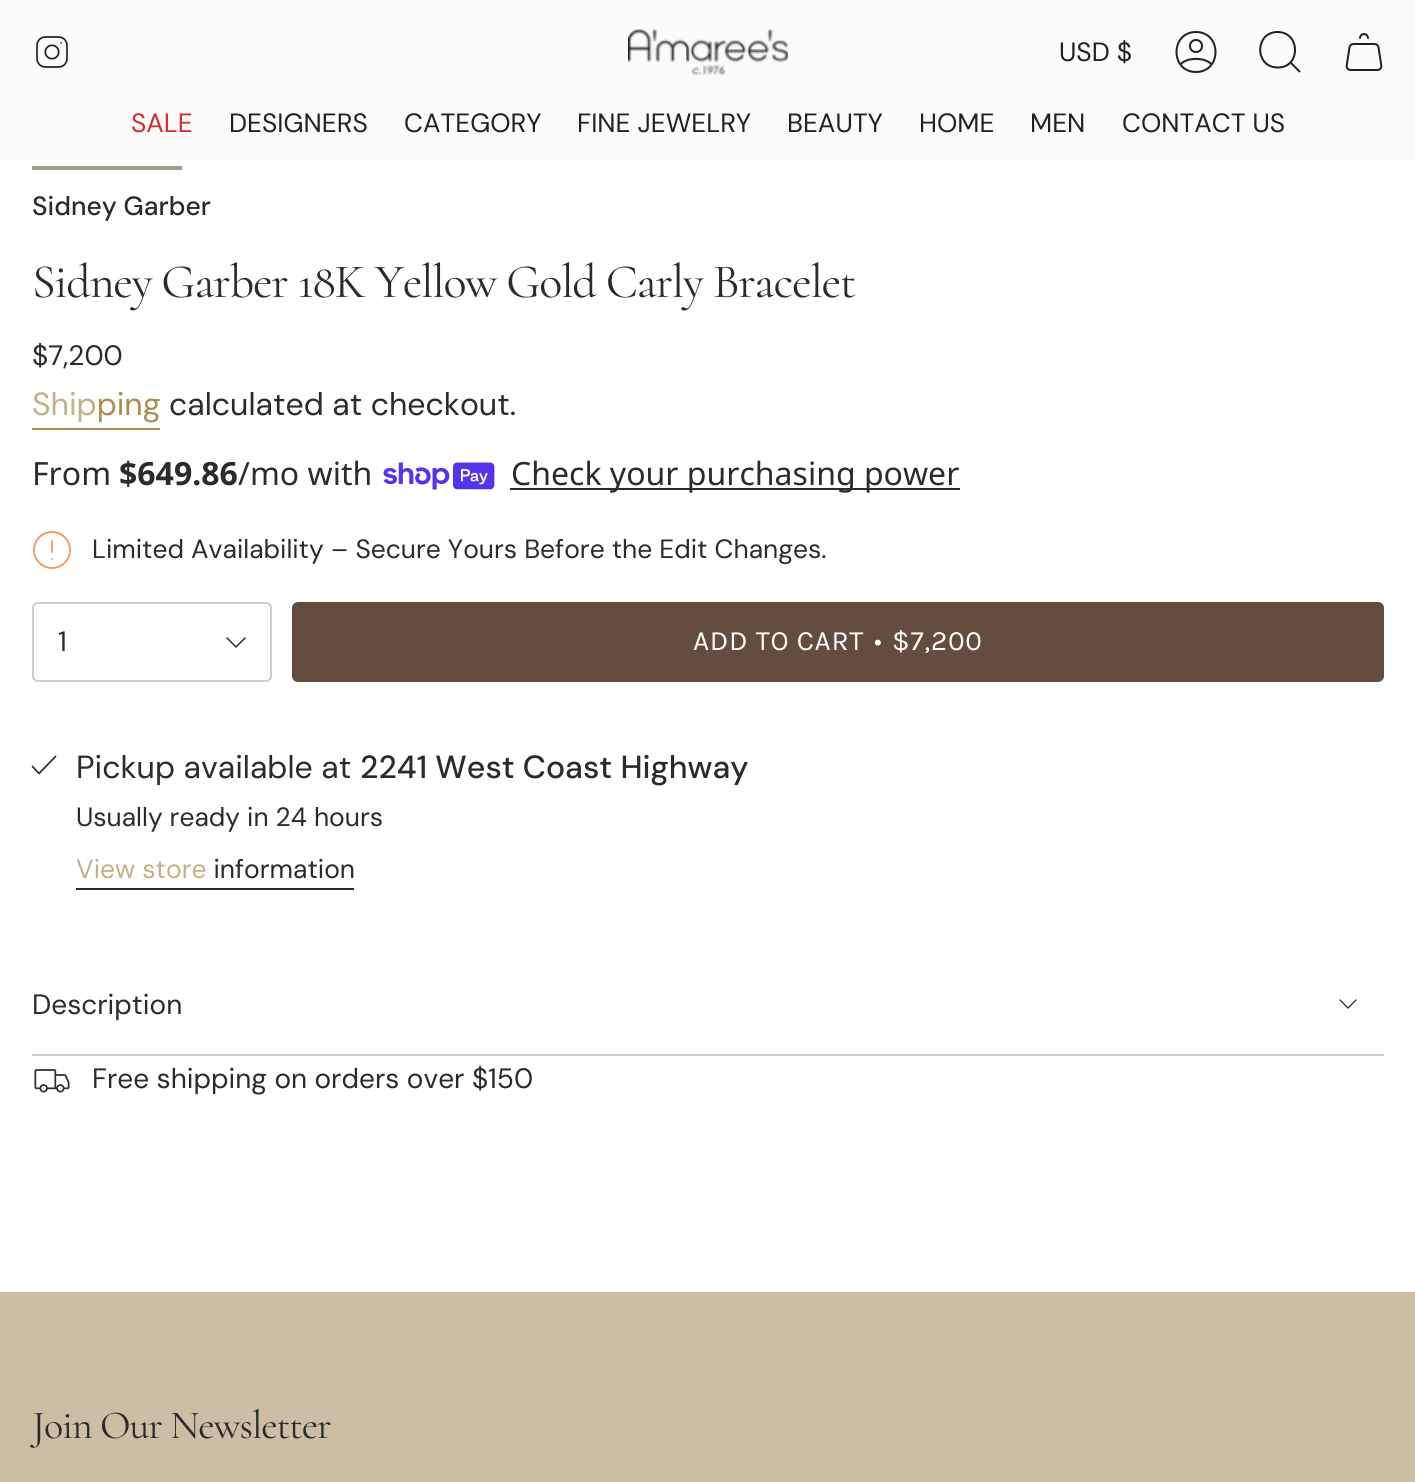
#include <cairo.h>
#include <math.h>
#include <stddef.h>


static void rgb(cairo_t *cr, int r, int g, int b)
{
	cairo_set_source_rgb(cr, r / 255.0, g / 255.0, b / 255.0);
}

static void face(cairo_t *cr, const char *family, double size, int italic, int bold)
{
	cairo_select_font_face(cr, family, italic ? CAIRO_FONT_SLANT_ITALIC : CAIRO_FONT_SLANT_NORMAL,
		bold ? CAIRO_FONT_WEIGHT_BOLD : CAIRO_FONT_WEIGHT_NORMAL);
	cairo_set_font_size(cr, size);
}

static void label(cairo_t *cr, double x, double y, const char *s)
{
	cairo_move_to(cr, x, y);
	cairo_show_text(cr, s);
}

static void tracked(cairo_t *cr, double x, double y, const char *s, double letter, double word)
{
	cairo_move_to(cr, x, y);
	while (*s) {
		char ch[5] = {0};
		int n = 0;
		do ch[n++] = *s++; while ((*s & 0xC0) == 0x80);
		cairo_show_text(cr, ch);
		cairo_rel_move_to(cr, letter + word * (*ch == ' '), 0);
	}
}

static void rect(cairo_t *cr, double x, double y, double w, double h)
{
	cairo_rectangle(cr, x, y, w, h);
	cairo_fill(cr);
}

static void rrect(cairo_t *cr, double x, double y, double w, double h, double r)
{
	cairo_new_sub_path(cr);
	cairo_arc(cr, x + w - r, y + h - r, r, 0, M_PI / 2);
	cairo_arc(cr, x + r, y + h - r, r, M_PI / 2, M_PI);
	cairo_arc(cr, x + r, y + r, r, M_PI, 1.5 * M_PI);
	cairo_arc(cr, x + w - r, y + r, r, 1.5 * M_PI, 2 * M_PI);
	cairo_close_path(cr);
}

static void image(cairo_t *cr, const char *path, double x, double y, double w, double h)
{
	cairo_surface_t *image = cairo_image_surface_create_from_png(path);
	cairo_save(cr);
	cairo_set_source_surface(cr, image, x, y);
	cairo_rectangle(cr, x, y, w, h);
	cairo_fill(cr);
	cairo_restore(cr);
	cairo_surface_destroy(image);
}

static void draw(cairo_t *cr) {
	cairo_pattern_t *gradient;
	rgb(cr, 255, 255, 255);
	cairo_paint(cr);
	rgb(cr, 252, 251, 249);
	rect(cr, 0, 0, 1415, 160);
	image(cr, "image0.png", 36, 36, 32, 32);
	image(cr, "image1.png", 628, 29, 160, 46);
	face(cr, "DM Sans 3", 26.4, 0, 0);
	rgb(cr, 33, 33, 33);
	label(cr, 1059, 61, "USD $");
	cairo_new_path(cr);
	cairo_move_to(cr, 1196, 32);
	cairo_curve_to(cr, 1170, 32, 1170, 72, 1196, 72);
	cairo_curve_to(cr, 1222, 72, 1222, 32, 1196, 32);
	cairo_close_path(cr);
	cairo_move_to(cr, 1180.5, 64.5);
	cairo_curve_to(cr, 1186.5, 57, 1205.5, 57, 1211.5, 64.5);
	cairo_move_to(cr, 1196, 52);
	cairo_curve_to(cr, 1204, 52, 1204, 40, 1196, 40);
	cairo_curve_to(cr, 1188, 40, 1188, 52, 1196, 52);
	cairo_close_path(cr);
	cairo_set_line_cap(cr, CAIRO_LINE_CAP_ROUND);
	cairo_set_line_join(cr, CAIRO_LINE_JOIN_ROUND);
	cairo_stroke(cr);
	cairo_new_path(cr);
	cairo_move_to(cr, 1277.5, 32);
	cairo_curve_to(cr, 1301, 32, 1301, 68.5, 1277, 67.5);
	cairo_curve_to(cr, 1254, 66.5, 1255, 32, 1277.5, 32);
	cairo_close_path(cr);
	cairo_move_to(cr, 1290, 62);
	cairo_line_to(cr, 1300, 72);
	cairo_set_line_cap(cr, CAIRO_LINE_CAP_BUTT);
	cairo_set_line_join(cr, CAIRO_LINE_JOIN_MITER);
	cairo_stroke(cr);
	image(cr, "image2.png", 1345, 33, 38, 38);
	rgb(cr, 208, 46, 46);
	label(cr, 131, 132, "SALE");
	rgb(cr, 33, 33, 33);
	label(cr, 229, 132, "DESIGNERS");
	label(cr, 404, 132, "CATEGORY");
	label(cr, 577, 132, "FINE JEWELRY");
	label(cr, 787, 132, "BEAUTY");
	label(cr, 919, 132, "HOME");
	label(cr, 1030, 132, "MEN");
	label(cr, 1122, 132, "CONTACT US");
	rgb(cr, 164, 156, 139);
	rect(cr, 32, 166, 150, 4);
	face(cr, "DM Sans Medium", 26.4, 0, 0);
	rgb(cr, 40, 44, 46);
	label(cr, 32, 215, "Sidney Garber");
	face(cr, "Cormorant", 48, 0, 0);
	tracked(cr, 32, 297, "Sidney Garber 18K Yellow Gold Carly Bracelet", -1.2, 0);
	face(cr, "DM Sans", 28, 0, 0);
	label(cr, 32, 365, "$7,200");
	face(cr, "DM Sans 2", 32, 0, 0);
	gradient = cairo_pattern_create_linear(32, 406, 161, 406);
	cairo_pattern_add_color_stop_rgba(gradient, 0, 0.769, 0.686, 0.525, 1);
	cairo_pattern_add_color_stop_rgba(gradient, 0.5, 0.769, 0.686, 0.525, 1);
	cairo_pattern_add_color_stop_rgba(gradient, 0.5, 0.671, 0.549, 0.322, 1);
	cairo_pattern_add_color_stop_rgba(gradient, 1, 0.671, 0.549, 0.322, 1);
	cairo_set_source(cr, gradient);
	cairo_pattern_destroy(gradient);
	label(cr, 32, 415, "Shipping");
	rgb(cr, 171, 140, 82);
	rect(cr, 32, 428, 128, 2);
	rgb(cr, 40, 44, 46);
	label(cr, 169, 415, "calculated at checkout.");
	face(cr, "Noto Sans", 32, 0, 0);
	label(cr, 32, 485, "From");
	face(cr, "Noto Sans", 32, 0, 1);
	label(cr, 119, 485, "$649.86");
	face(cr, "Noto Sans", 32, 0, 0);
	label(cr, 238, 485, "/mo with");
	image(cr, "image3.png", 383, 462, 112, 28);
	rect(cr, 510, 488, 450, 2);
	label(cr, 511, 485, "Check your purchasing power");
	cairo_new_path(cr);
	cairo_move_to(cr, 52, 541);
	cairo_line_to(cr, 52, 552);
	cairo_move_to(cr, 52, 559);
	cairo_line_to(cr, 52, 559);
	cairo_move_to(cr, 52, 568);
	cairo_curve_to(cr, 62, 568, 70, 560, 70, 550);
	cairo_curve_to(cr, 70, 540, 62, 532, 52, 532);
	cairo_curve_to(cr, 42, 532, 34, 540, 34, 550);
	cairo_curve_to(cr, 34, 560, 42, 568, 52, 568);
	cairo_close_path(cr);
	rgb(cr, 247, 149, 84);
	cairo_set_line_width(cr, 1.8);
	cairo_set_line_cap(cr, CAIRO_LINE_CAP_ROUND);
	cairo_set_line_join(cr, CAIRO_LINE_JOIN_ROUND);
	cairo_stroke(cr);
	face(cr, "DM Sans 3", 26.4, 0, 0);
	rgb(cr, 40, 44, 46);
	label(cr, 92, 558, "Limited Availability – Secure Yours Before the Edit Changes.");
	rrect(cr, 33, 603, 238, 78, 5);
	rgb(cr, 209, 205, 196);
	cairo_set_line_width(cr, 2);
	cairo_set_line_cap(cr, CAIRO_LINE_CAP_BUTT);
	cairo_set_line_join(cr, CAIRO_LINE_JOIN_MITER);
	cairo_stroke(cr);
	face(cr, "DM Sans", 28, 0, 0);
	rgb(cr, 40, 44, 46);
	label(cr, 58, 651, "1");
	cairo_new_path(cr);
	cairo_move_to(cr, 227, 638);
	cairo_line_to(cr, 236, 647);
	cairo_line_to(cr, 245, 638);
	cairo_set_line_width(cr, 1.5);
	cairo_set_line_cap(cr, CAIRO_LINE_CAP_ROUND);
	cairo_set_line_join(cr, CAIRO_LINE_JOIN_ROUND);
	cairo_stroke(cr);
	rgb(cr, 100, 77, 62);
	rrect(cr, 293, 603, 1090, 78, 5);
	cairo_fill_preserve(cr);
	cairo_set_line_width(cr, 2);
	cairo_set_line_cap(cr, CAIRO_LINE_CAP_BUTT);
	cairo_set_line_join(cr, CAIRO_LINE_JOIN_MITER);
	cairo_stroke(cr);
	face(cr, "Karla", 28, 0, 0);
	rgb(cr, 255, 255, 255);
	tracked(cr, 693, 650, "ADD TO CART", 0.75, 0);
	tracked(cr, 874, 650, "•", 0.75, 0);
	tracked(cr, 892, 650, "$7,200", 0.75, 0);
	cairo_new_path(cr);
	cairo_move_to(cr, 32.5, 766.5);
	cairo_line_to(cr, 39, 773.5);
	cairo_line_to(cr, 55.5, 756.5);
	rgb(cr, 40, 44, 46);
	cairo_set_line_width(cr, 1.7);
	cairo_set_line_cap(cr, CAIRO_LINE_CAP_ROUND);
	cairo_set_line_join(cr, CAIRO_LINE_JOIN_ROUND);
	cairo_stroke(cr);
	face(cr, "DM Sans 2", 32, 0, 0);
	label(cr, 76, 778, "Pickup available at");
	face(cr, "DM Sans 2 Medium", 32, 0, 0);
	label(cr, 360, 778, "2241 West Coast Highway");
	face(cr, "DM Sans 3", 26.4, 0, 0);
	label(cr, 76, 826, "Usually ready in 24 hours");
	gradient = cairo_pattern_create_linear(76, 871, 355, 871);
	cairo_pattern_add_color_stop_rgba(gradient, 0, 0.769, 0.686, 0.525, 1);
	cairo_pattern_add_color_stop_rgba(gradient, 0.5, 0.769, 0.686, 0.525, 1);
	cairo_pattern_add_color_stop_rgba(gradient, 0.5, 0.157, 0.173, 0.18, 1);
	cairo_pattern_add_color_stop_rgba(gradient, 1, 0.157, 0.173, 0.18, 1);
	cairo_set_source(cr, gradient);
	cairo_pattern_destroy(gradient);
	label(cr, 76, 878, "View store information");
	rgb(cr, 40, 44, 46);
	rect(cr, 76, 888, 278, 2);
	rgb(cr, 209, 205, 196);
	rect(cr, 32, 1054, 1352, 2);
	face(cr, "DM Sans", 28, 0, 0);
	rgb(cr, 40, 44, 46);
	label(cr, 32, 1014, "Description");
	cairo_new_path(cr);
	cairo_move_to(cr, 1340, 1000);
	cairo_line_to(cr, 1348, 1008);
	cairo_line_to(cr, 1356, 1000);
	cairo_set_line_width(cr, 1.3);
	cairo_stroke(cr);
	image(cr, "image4.png", 34, 1069, 36, 24);
	label(cr, 92, 1088, "Free shipping on orders over $150");
	rgb(cr, 203, 190, 165);
	rect(cr, 0, 1292, 1415, 190);
	face(cr, "Cormorant", 40, 0, 0);
	rgb(cr, 40, 44, 46);
	tracked(cr, 32, 1438, "Join Our Newsletter", -1, 0);
}

int main(void) {
	cairo_surface_t *surface = cairo_image_surface_create(CAIRO_FORMAT_RGB24, 1415, 1482);
	cairo_t *cr = cairo_create(surface);
	cairo_font_options_t *options = cairo_font_options_create();
	cairo_font_options_set_hint_metrics(options, CAIRO_HINT_METRICS_OFF);
	cairo_font_options_set_hint_style(options, CAIRO_HINT_STYLE_NONE);
	cairo_set_font_options(cr, options);
	cairo_set_miter_limit(cr, 4);
	draw(cr);
	cairo_surface_write_to_png(surface, "render.png");
	cairo_font_options_destroy(options);
	cairo_destroy(cr);
	cairo_surface_destroy(surface);
	return 0;
}
